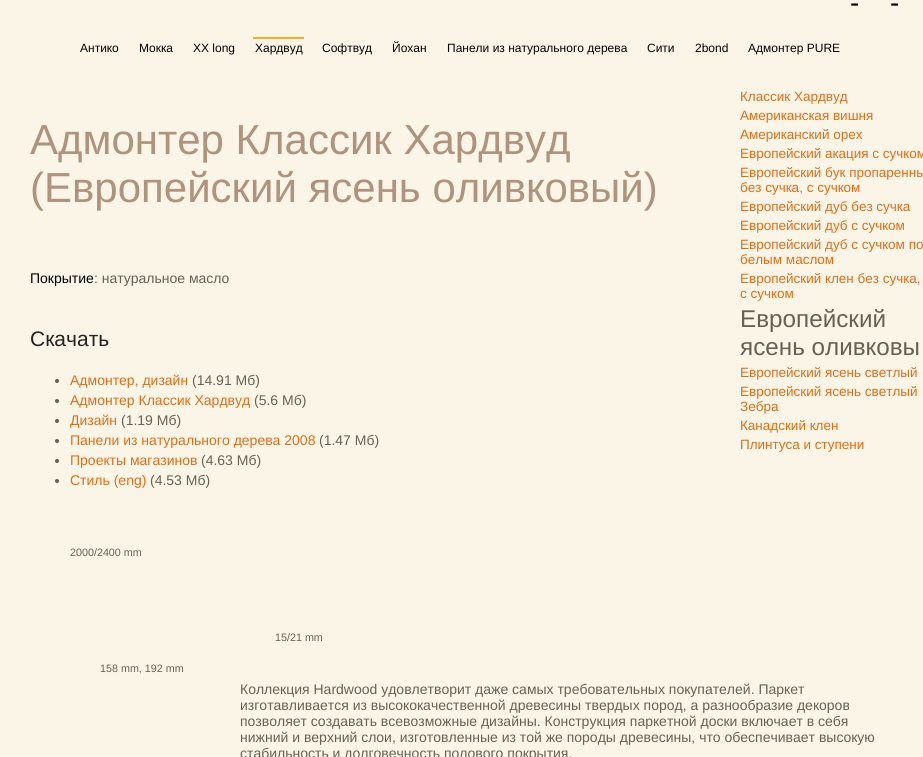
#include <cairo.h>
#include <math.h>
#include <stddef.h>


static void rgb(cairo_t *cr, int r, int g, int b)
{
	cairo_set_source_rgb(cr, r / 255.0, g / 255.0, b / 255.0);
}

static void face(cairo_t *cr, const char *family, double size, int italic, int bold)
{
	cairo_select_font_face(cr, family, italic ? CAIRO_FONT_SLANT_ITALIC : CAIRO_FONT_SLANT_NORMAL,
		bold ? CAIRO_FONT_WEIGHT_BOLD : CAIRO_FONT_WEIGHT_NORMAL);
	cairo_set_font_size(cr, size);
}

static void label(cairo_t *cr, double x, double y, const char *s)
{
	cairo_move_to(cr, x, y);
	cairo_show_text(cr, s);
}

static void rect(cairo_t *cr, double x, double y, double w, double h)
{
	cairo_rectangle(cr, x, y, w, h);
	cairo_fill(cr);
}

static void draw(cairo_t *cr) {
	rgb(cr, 251, 245, 232);
	cairo_paint(cr);
	face(cr, "Liberation Sans", 28, 0, 0);
	rgb(cr, 0, 0, 0);
	label(cr, 850, 12, "-");
	label(cr, 890, 12, "-");
	face(cr, "Liberation Sans", 12, 0, 0);
	label(cr, 80, 52, "Антико");
	label(cr, 139, 52, "Мокка");
	label(cr, 193, 52, "XX long");
	rgb(cr, 254, 170, 35);
	rect(cr, 253, 37, 51, 2);
	rgb(cr, 0, 0, 0);
	label(cr, 255, 52, "Хардвуд");
	label(cr, 322, 52, "Софтвуд");
	label(cr, 392, 52, "Йохан");
	label(cr, 447, 52, "Панели из натурального дерева");
	label(cr, 647, 52, "Сити");
	label(cr, 695, 52, "2bond");
	label(cr, 748, 52, "Адмонтер PURE");
	face(cr, "Liberation Sans", 42, 0, 0);
	rgb(cr, 175, 147, 124);
	label(cr, 30, 154, "Адмонтер Классик Хардвуд");
	label(cr, 30, 202, "(Европейский ясень оливковый)");
	face(cr, "Liberation Sans", 13.5, 0, 0);
	rgb(cr, 227, 109, 17);
	label(cr, 740, 101, "Классик Хардвуд");
	label(cr, 740, 120, "Американская вишня");
	label(cr, 740, 139, "Американский орех");
	label(cr, 740, 158, "Европейский акация с сучком");
	label(cr, 740, 177, "Европейский бук пропаренны");
	label(cr, 740, 192, "без сучка, с сучком");
	label(cr, 740, 211, "Европейский дуб без сучка");
	label(cr, 740, 230, "Европейский дуб с сучком");
	label(cr, 740, 249, "Европейский дуб с сучком по");
	label(cr, 740, 264, "белым маслом");
	label(cr, 740, 283, "Европейский клен без сучка,");
	label(cr, 740, 298, "с сучком");
	face(cr, "Liberation Sans", 24.25, 0, 0);
	rgb(cr, 102, 98, 82);
	label(cr, 740, 327, "Европейский");
	label(cr, 740, 355, "ясень оливковы");
	face(cr, "Liberation Sans", 13.5, 0, 0);
	rgb(cr, 227, 109, 17);
	label(cr, 740, 377, "Европейский ясень светлый");
	label(cr, 740, 396, "Европейский ясень светлый");
	label(cr, 740, 411, "Зебра");
	label(cr, 740, 430, "Канадский клен");
	label(cr, 740, 449, "Плинтуса и ступени");
	face(cr, "Liberation Sans", 14, 0, 0);
	rgb(cr, 0, 0, 0);
	label(cr, 30, 283, "Покрытие");
	rgb(cr, 102, 98, 82);
	label(cr, 94, 283, ": натуральное масло");
	face(cr, "Liberation Sans", 21, 0, 0);
	rgb(cr, 34, 34, 34);
	label(cr, 30, 346, "Скачать");
	rgb(cr, 102, 98, 82);
	cairo_new_path(cr);
	cairo_arc(cr, 57, 381, 2, 0, 2 * M_PI);
	cairo_fill(cr);
	face(cr, "Liberation Sans", 14, 0, 0);
	rgb(cr, 227, 109, 17);
	label(cr, 70, 385, "Адмонтер, дизайн");
	rgb(cr, 102, 98, 82);
	label(cr, 192, 385, "(14.91 Мб)");
	cairo_new_path(cr);
	cairo_arc(cr, 57, 401, 2, 0, 2 * M_PI);
	cairo_fill(cr);
	rgb(cr, 227, 109, 17);
	label(cr, 70, 405, "Адмонтер Классик Хардвуд");
	rgb(cr, 102, 98, 82);
	label(cr, 254, 405, "(5.6 Мб)");
	cairo_new_path(cr);
	cairo_arc(cr, 57, 421, 2, 0, 2 * M_PI);
	cairo_fill(cr);
	rgb(cr, 227, 109, 17);
	label(cr, 70, 425, "Дизайн");
	rgb(cr, 102, 98, 82);
	label(cr, 121, 425, "(1.19 Мб)");
	cairo_new_path(cr);
	cairo_arc(cr, 57, 441, 2, 0, 2 * M_PI);
	cairo_fill(cr);
	rgb(cr, 227, 109, 17);
	label(cr, 70, 445, "Панели из натурального дерева 2008");
	rgb(cr, 102, 98, 82);
	label(cr, 319, 445, "(1.47 Мб)");
	cairo_new_path(cr);
	cairo_arc(cr, 57, 461, 2, 0, 2 * M_PI);
	cairo_fill(cr);
	rgb(cr, 227, 109, 17);
	label(cr, 70, 465, "Проекты магазинов");
	rgb(cr, 102, 98, 82);
	label(cr, 201, 465, "(4.63 Мб)");
	cairo_new_path(cr);
	cairo_arc(cr, 57, 481, 2, 0, 2 * M_PI);
	cairo_fill(cr);
	rgb(cr, 227, 109, 17);
	label(cr, 70, 485, "Стиль (eng)");
	rgb(cr, 102, 98, 82);
	label(cr, 150, 485, "(4.53 Мб)");
	face(cr, "Liberation Sans", 10.75, 0, 0);
	label(cr, 70, 556, "2000/2400 mm");
	label(cr, 275, 641, "15/21 mm");
	label(cr, 100, 672, "158 mm, 192 mm");
	face(cr, "Liberation Sans", 14, 0, 0);
	label(cr, 240, 694, "Коллекция Hardwood удовлетворит даже самых требовательных покупателей. Паркет");
	label(cr, 240, 710, "изготавливается из высококачественной древесины твердых пород, а разнообразие декоров");
	label(cr, 240, 726, "позволяет создавать всевозможные дизайны. Конструкция паркетной доски включает в себя");
	label(cr, 240, 742, "нижний и верхний слои, изготовленные из той же породы древесины, что обеспечивает высокую");
	label(cr, 240, 758, "стабильность и долговечность полового покрытия.");
}

int main(void) {
	cairo_surface_t *surface = cairo_image_surface_create(CAIRO_FORMAT_RGB24, 923, 757);
	cairo_t *cr = cairo_create(surface);
	cairo_font_options_t *options = cairo_font_options_create();
	cairo_font_options_set_hint_metrics(options, CAIRO_HINT_METRICS_OFF);
	cairo_font_options_set_hint_style(options, CAIRO_HINT_STYLE_NONE);
	cairo_set_font_options(cr, options);
	cairo_set_miter_limit(cr, 4);
	draw(cr);
	cairo_surface_write_to_png(surface, "render.png");
	cairo_font_options_destroy(options);
	cairo_destroy(cr);
	cairo_surface_destroy(surface);
	return 0;
}
